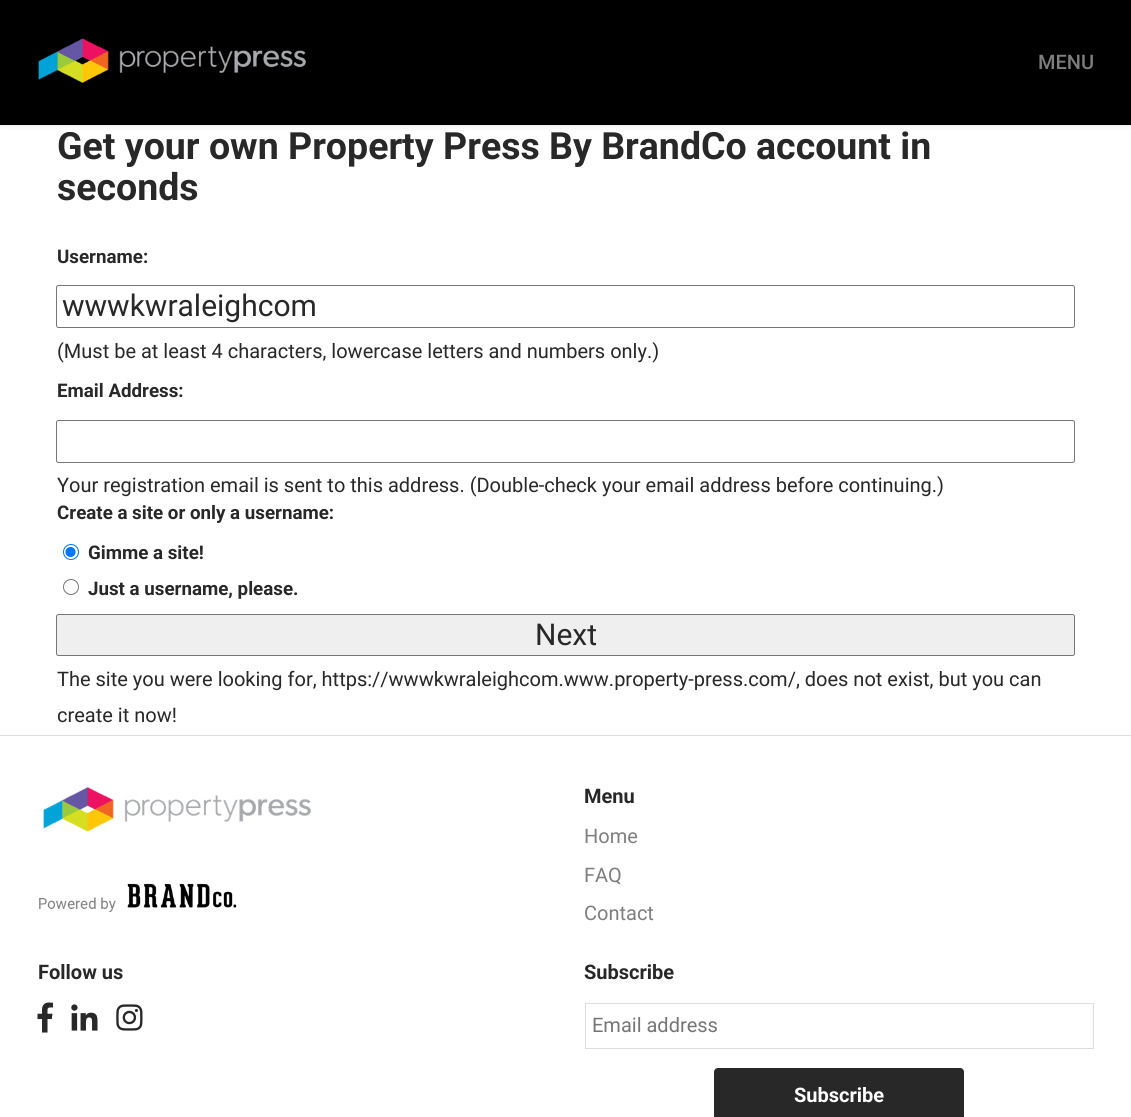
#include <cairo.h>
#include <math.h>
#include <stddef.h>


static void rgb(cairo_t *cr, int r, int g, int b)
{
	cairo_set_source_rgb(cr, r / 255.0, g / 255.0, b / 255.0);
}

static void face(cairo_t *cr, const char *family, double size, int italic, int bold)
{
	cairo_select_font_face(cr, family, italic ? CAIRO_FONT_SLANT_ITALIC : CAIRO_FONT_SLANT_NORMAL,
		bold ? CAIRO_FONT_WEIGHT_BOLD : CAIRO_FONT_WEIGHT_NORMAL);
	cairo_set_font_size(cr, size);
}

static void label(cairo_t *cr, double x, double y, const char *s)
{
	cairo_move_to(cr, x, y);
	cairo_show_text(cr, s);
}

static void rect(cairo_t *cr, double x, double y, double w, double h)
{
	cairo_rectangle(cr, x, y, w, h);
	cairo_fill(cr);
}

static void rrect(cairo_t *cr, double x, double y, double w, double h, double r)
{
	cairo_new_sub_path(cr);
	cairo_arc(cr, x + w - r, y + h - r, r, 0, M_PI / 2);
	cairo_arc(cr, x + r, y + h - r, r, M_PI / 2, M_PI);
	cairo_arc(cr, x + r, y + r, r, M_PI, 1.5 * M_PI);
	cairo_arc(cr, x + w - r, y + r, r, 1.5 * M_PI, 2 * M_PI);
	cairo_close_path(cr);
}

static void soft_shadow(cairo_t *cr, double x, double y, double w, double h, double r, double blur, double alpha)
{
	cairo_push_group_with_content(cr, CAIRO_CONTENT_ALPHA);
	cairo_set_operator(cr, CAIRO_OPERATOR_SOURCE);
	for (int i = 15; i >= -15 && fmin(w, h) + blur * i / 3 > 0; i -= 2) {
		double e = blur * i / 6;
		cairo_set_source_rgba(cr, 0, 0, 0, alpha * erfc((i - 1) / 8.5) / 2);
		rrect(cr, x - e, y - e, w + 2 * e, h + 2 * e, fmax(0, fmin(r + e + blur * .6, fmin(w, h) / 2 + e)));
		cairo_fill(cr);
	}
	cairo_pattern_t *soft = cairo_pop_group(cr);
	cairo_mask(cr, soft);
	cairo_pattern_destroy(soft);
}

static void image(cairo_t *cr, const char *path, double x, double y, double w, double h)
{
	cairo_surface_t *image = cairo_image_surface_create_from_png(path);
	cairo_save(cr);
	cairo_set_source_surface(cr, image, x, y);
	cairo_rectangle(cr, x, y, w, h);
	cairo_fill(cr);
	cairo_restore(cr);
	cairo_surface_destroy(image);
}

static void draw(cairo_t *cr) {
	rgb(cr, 255, 255, 255);
	cairo_paint(cr);
	rgb(cr, 0, 0, 0);
	soft_shadow(cr, 0, 1, 1131, 125, 0, 2.5, 0.1);
	rgb(cr, 0, 0, 0);
	rect(cr, 0, 0, 1131, 125);
	image(cr, "image0.png", 38, 38, 268, 45);
	face(cr, "Roboto Medium", 20, 0, 0);
	rgb(cr, 126, 126, 126);
	label(cr, 1038, 69, "MENU");
	face(cr, "Roboto", 37.5, 0, 1);
	rgb(cr, 40, 40, 40);
	label(cr, 57, 159, "Get your own Property Press By BrandCo account in");
	label(cr, 57, 200, "seconds");
	face(cr, "Roboto", 18.75, 0, 1);
	label(cr, 57, 263, "Username:");
	rrect(cr, 56.5, 285.5, 1018, 42, 2);
	rgb(cr, 118, 118, 118);
	cairo_set_line_width(cr, 1);
	cairo_stroke(cr);
	face(cr, "Roboto", 30, 0, 0);
	rgb(cr, 40, 40, 40);
	label(cr, 62, 316, "wwwkwraleighcom");
	face(cr, "Roboto", 20, 0, 0);
	label(cr, 57, 358, "(Must be at least 4 characters, lowercase letters and numbers only.)");
	face(cr, "Roboto", 18.75, 0, 1);
	label(cr, 57, 397, "Email Address:");
	rrect(cr, 56.5, 420.5, 1018, 42, 2);
	rgb(cr, 118, 118, 118);
	cairo_stroke(cr);
	face(cr, "Roboto", 20, 0, 0);
	rgb(cr, 40, 40, 40);
	label(cr, 57, 492, "Your registration email is sent to this address. (Double-check your email address before continuing.)");
	face(cr, "Roboto", 18.75, 0, 1);
	label(cr, 57, 519, "Create a site or only a username:");
	cairo_new_path(cr);
	cairo_arc(cr, 71, 552, 7.5, 0, 2 * M_PI);
	rgb(cr, 0, 117, 255);
	cairo_stroke(cr);
	cairo_arc(cr, 70.5, 552, 5, 0, 2 * M_PI);
	cairo_fill(cr);
	rgb(cr, 40, 40, 40);
	label(cr, 88, 559, "Gimme a site!");
	cairo_new_path(cr);
	cairo_arc(cr, 71, 587, 7.5, 0, 2 * M_PI);
	rgb(cr, 118, 118, 118);
	cairo_stroke(cr);
	rgb(cr, 40, 40, 40);
	label(cr, 88, 595, "Just a username, please.");
	rgb(cr, 239, 239, 239);
	rrect(cr, 56.5, 614.5, 1018, 41, 2);
	cairo_fill_preserve(cr);
	rgb(cr, 118, 118, 118);
	cairo_stroke(cr);
	face(cr, "Roboto", 30, 0, 0);
	rgb(cr, 40, 40, 40);
	label(cr, 535, 645, "Next");
	face(cr, "Roboto", 20, 0, 0);
	label(cr, 57, 686, "The site you were looking for, https://wwwkwraleighcom.www.property-press.com/, does not exist, but you can");
	label(cr, 57, 722, "create it now!");
	rgb(cr, 221, 221, 221);
	rect(cr, 0, 735, 1131, 1);
	image(cr, "image1.png", 38, 787, 273, 125);
	face(cr, "Roboto", 20, 0, 1);
	rgb(cr, 40, 40, 40);
	label(cr, 584, 803, "Menu");
	face(cr, "Roboto", 20, 0, 0);
	rgb(cr, 126, 126, 126);
	label(cr, 584, 843, "Home");
	label(cr, 584, 882, "FAQ");
	label(cr, 584, 920, "Contact");
	face(cr, "Roboto", 20, 0, 1);
	rgb(cr, 40, 40, 40);
	label(cr, 38, 979, "Follow us");
	image(cr, "image2.png", 37, 1002, 16, 31);
	image(cr, "image3.png", 71, 1004, 27, 27);
	image(cr, "image4.png", 116, 1004, 27, 27);
	label(cr, 584, 979, "Subscribe");
	cairo_rectangle(cr, 585.5, 1003.5, 508, 45);
	rgb(cr, 221, 221, 221);
	cairo_stroke(cr);
	face(cr, "Roboto", 20, 0, 0);
	rgb(cr, 117, 117, 117);
	label(cr, 592, 1032, "Email address");
	rgb(cr, 40, 40, 40);
	rrect(cr, 714, 1068, 250, 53, 4);
	cairo_fill(cr);
	face(cr, "Roboto", 20, 0, 1);
	rgb(cr, 255, 255, 255);
	label(cr, 794, 1102, "Subscribe");
}

int main(void) {
	cairo_surface_t *surface = cairo_image_surface_create(CAIRO_FORMAT_RGB24, 1131, 1117);
	cairo_t *cr = cairo_create(surface);
	cairo_font_options_t *options = cairo_font_options_create();
	cairo_font_options_set_hint_metrics(options, CAIRO_HINT_METRICS_OFF);
	cairo_font_options_set_hint_style(options, CAIRO_HINT_STYLE_NONE);
	cairo_set_font_options(cr, options);
	cairo_set_miter_limit(cr, 4);
	draw(cr);
	cairo_surface_write_to_png(surface, "render.png");
	cairo_font_options_destroy(options);
	cairo_destroy(cr);
	cairo_surface_destroy(surface);
	return 0;
}
